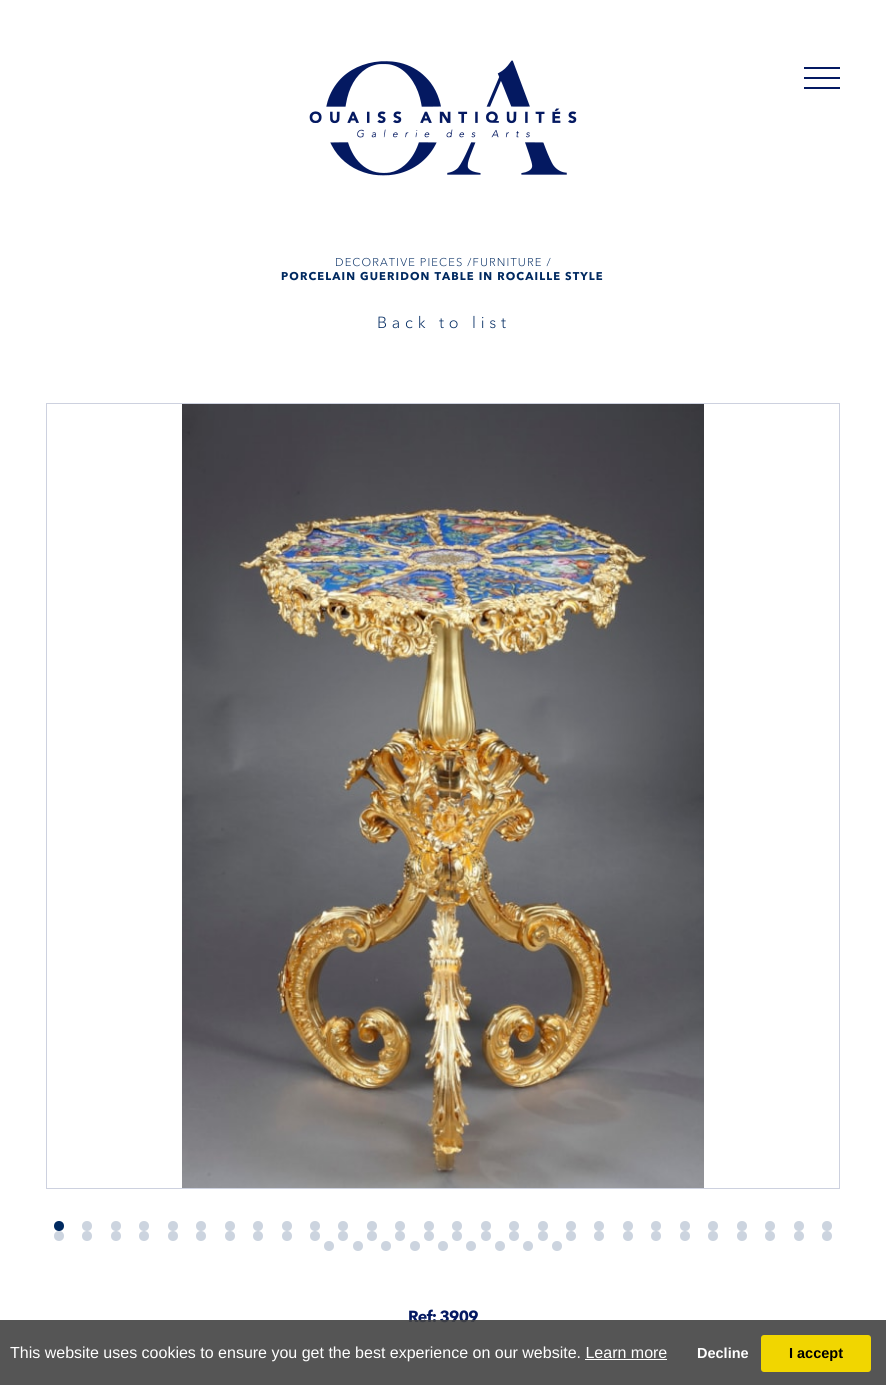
#include <cairo.h>
#include <math.h>
#include <stddef.h>


static void rgb(cairo_t *cr, int r, int g, int b)
{
	cairo_set_source_rgb(cr, r / 255.0, g / 255.0, b / 255.0);
}

static void face(cairo_t *cr, const char *family, double size, int italic, int bold)
{
	cairo_select_font_face(cr, family, italic ? CAIRO_FONT_SLANT_ITALIC : CAIRO_FONT_SLANT_NORMAL,
		bold ? CAIRO_FONT_WEIGHT_BOLD : CAIRO_FONT_WEIGHT_NORMAL);
	cairo_set_font_size(cr, size);
}

static void label(cairo_t *cr, double x, double y, const char *s)
{
	cairo_move_to(cr, x, y);
	cairo_show_text(cr, s);
}

static void tracked(cairo_t *cr, double x, double y, const char *s, double letter, double word)
{
	cairo_move_to(cr, x, y);
	while (*s) {
		char ch[5] = {0};
		int n = 0;
		do ch[n++] = *s++; while ((*s & 0xC0) == 0x80);
		cairo_show_text(cr, ch);
		cairo_rel_move_to(cr, letter + word * (*ch == ' '), 0);
	}
}

static void rect(cairo_t *cr, double x, double y, double w, double h)
{
	cairo_rectangle(cr, x, y, w, h);
	cairo_fill(cr);
}

static void rrect(cairo_t *cr, double x, double y, double w, double h, double r)
{
	cairo_new_sub_path(cr);
	cairo_arc(cr, x + w - r, y + h - r, r, 0, M_PI / 2);
	cairo_arc(cr, x + r, y + h - r, r, M_PI / 2, M_PI);
	cairo_arc(cr, x + r, y + r, r, M_PI, 1.5 * M_PI);
	cairo_arc(cr, x + w - r, y + r, r, 1.5 * M_PI, 2 * M_PI);
	cairo_close_path(cr);
}

static void image(cairo_t *cr, const char *path, double x, double y, double w, double h)
{
	cairo_surface_t *image = cairo_image_surface_create_from_png(path);
	cairo_save(cr);
	cairo_set_source_surface(cr, image, x, y);
	cairo_rectangle(cr, x, y, w, h);
	cairo_fill(cr);
	cairo_restore(cr);
	cairo_surface_destroy(image);
}

static void draw(cairo_t *cr) {
	rgb(cr, 255, 255, 255);
	cairo_paint(cr);
	image(cr, "image0.png", 309, 60, 268, 116);
	rgb(cr, 4, 25, 97);
	rect(cr, 804, 67, 36, 2);
	rect(cr, 804, 77, 36, 2);
	rect(cr, 804, 87, 36, 2);
	face(cr, "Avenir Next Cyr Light", 11.2, 0, 0);
	rgb(cr, 0, 41, 96);
	tracked(cr, 335, 266, "DECORATIVE PIECES /FURNITURE /", 1.1, 0);
	face(cr, "Avenir Next", 11.2, 0, 1);
	tracked(cr, 281, 280, "PORCELAIN GUERIDON TABLE IN ROCAILLE STYLE", 1.1, 0);
	face(cr, "Avenir Next Cyr Light", 16, 0, 0);
	tracked(cr, 377, 328, "Back to list", 4.75, 0);
	cairo_rectangle(cr, 46.5, 403.5, 793, 785);
	rgb(cr, 205, 209, 223);
	cairo_set_line_width(cr, 1);
	cairo_stroke(cr);
	image(cr, "image1.png", 182, 404, 522, 784);
	rgb(cr, 0, 41, 96);
	cairo_arc(cr, 59, 1226, 5, 0, 2 * M_PI);
	cairo_fill(cr);
	rgb(cr, 204, 212, 223);
	cairo_arc(cr, 87, 1226, 5, 0, 2 * M_PI);
	cairo_fill(cr);
	cairo_arc(cr, 116, 1226, 5, 0, 2 * M_PI);
	cairo_fill(cr);
	cairo_arc(cr, 144, 1226, 5, 0, 2 * M_PI);
	cairo_fill(cr);
	cairo_arc(cr, 173, 1226, 5, 0, 2 * M_PI);
	cairo_fill(cr);
	cairo_arc(cr, 201, 1226, 5, 0, 2 * M_PI);
	cairo_fill(cr);
	cairo_arc(cr, 230, 1226, 5, 0, 2 * M_PI);
	cairo_fill(cr);
	cairo_arc(cr, 258, 1226, 5, 0, 2 * M_PI);
	cairo_fill(cr);
	cairo_arc(cr, 287, 1226, 5, 0, 2 * M_PI);
	cairo_fill(cr);
	cairo_arc(cr, 315, 1226, 5, 0, 2 * M_PI);
	cairo_fill(cr);
	cairo_arc(cr, 343, 1226, 5, 0, 2 * M_PI);
	cairo_fill(cr);
	cairo_arc(cr, 372, 1226, 5, 0, 2 * M_PI);
	cairo_fill(cr);
	cairo_arc(cr, 400, 1226, 5, 0, 2 * M_PI);
	cairo_fill(cr);
	cairo_arc(cr, 429, 1226, 5, 0, 2 * M_PI);
	cairo_fill(cr);
	cairo_arc(cr, 457, 1226, 5, 0, 2 * M_PI);
	cairo_fill(cr);
	cairo_arc(cr, 486, 1226, 5, 0, 2 * M_PI);
	cairo_fill(cr);
	cairo_arc(cr, 514, 1226, 5, 0, 2 * M_PI);
	cairo_fill(cr);
	cairo_arc(cr, 543, 1226, 5, 0, 2 * M_PI);
	cairo_fill(cr);
	cairo_arc(cr, 571, 1226, 5, 0, 2 * M_PI);
	cairo_fill(cr);
	cairo_arc(cr, 599, 1226, 5, 0, 2 * M_PI);
	cairo_fill(cr);
	cairo_arc(cr, 628, 1226, 5, 0, 2 * M_PI);
	cairo_fill(cr);
	cairo_arc(cr, 656, 1226, 5, 0, 2 * M_PI);
	cairo_fill(cr);
	cairo_arc(cr, 685, 1226, 5, 0, 2 * M_PI);
	cairo_fill(cr);
	cairo_arc(cr, 713, 1226, 5, 0, 2 * M_PI);
	cairo_fill(cr);
	cairo_arc(cr, 742, 1226, 5, 0, 2 * M_PI);
	cairo_fill(cr);
	cairo_arc(cr, 770, 1226, 5, 0, 2 * M_PI);
	cairo_fill(cr);
	cairo_arc(cr, 799, 1226, 5, 0, 2 * M_PI);
	cairo_fill(cr);
	cairo_arc(cr, 827, 1226, 5, 0, 2 * M_PI);
	cairo_fill(cr);
	cairo_arc(cr, 59, 1236, 5, 0, 2 * M_PI);
	cairo_fill(cr);
	cairo_arc(cr, 87, 1236, 5, 0, 2 * M_PI);
	cairo_fill(cr);
	cairo_arc(cr, 116, 1236, 5, 0, 2 * M_PI);
	cairo_fill(cr);
	cairo_arc(cr, 144, 1236, 5, 0, 2 * M_PI);
	cairo_fill(cr);
	cairo_arc(cr, 173, 1236, 5, 0, 2 * M_PI);
	cairo_fill(cr);
	cairo_arc(cr, 201, 1236, 5, 0, 2 * M_PI);
	cairo_fill(cr);
	cairo_arc(cr, 230, 1236, 5, 0, 2 * M_PI);
	cairo_fill(cr);
	cairo_arc(cr, 258, 1236, 5, 0, 2 * M_PI);
	cairo_fill(cr);
	cairo_arc(cr, 287, 1236, 5, 0, 2 * M_PI);
	cairo_fill(cr);
	cairo_arc(cr, 315, 1236, 5, 0, 2 * M_PI);
	cairo_fill(cr);
	cairo_arc(cr, 343, 1236, 5, 0, 2 * M_PI);
	cairo_fill(cr);
	cairo_arc(cr, 372, 1236, 5, 0, 2 * M_PI);
	cairo_fill(cr);
	cairo_arc(cr, 400, 1236, 5, 0, 2 * M_PI);
	cairo_fill(cr);
	cairo_arc(cr, 429, 1236, 5, 0, 2 * M_PI);
	cairo_fill(cr);
	cairo_arc(cr, 457, 1236, 5, 0, 2 * M_PI);
	cairo_fill(cr);
	cairo_arc(cr, 486, 1236, 5, 0, 2 * M_PI);
	cairo_fill(cr);
	cairo_arc(cr, 514, 1236, 5, 0, 2 * M_PI);
	cairo_fill(cr);
	cairo_arc(cr, 543, 1236, 5, 0, 2 * M_PI);
	cairo_fill(cr);
	cairo_arc(cr, 571, 1236, 5, 0, 2 * M_PI);
	cairo_fill(cr);
	cairo_arc(cr, 599, 1236, 5, 0, 2 * M_PI);
	cairo_fill(cr);
	cairo_arc(cr, 628, 1236, 5, 0, 2 * M_PI);
	cairo_fill(cr);
	cairo_arc(cr, 656, 1236, 5, 0, 2 * M_PI);
	cairo_fill(cr);
	cairo_arc(cr, 685, 1236, 5, 0, 2 * M_PI);
	cairo_fill(cr);
	cairo_arc(cr, 713, 1236, 5, 0, 2 * M_PI);
	cairo_fill(cr);
	cairo_arc(cr, 742, 1236, 5, 0, 2 * M_PI);
	cairo_fill(cr);
	cairo_arc(cr, 770, 1236, 5, 0, 2 * M_PI);
	cairo_fill(cr);
	cairo_arc(cr, 799, 1236, 5, 0, 2 * M_PI);
	cairo_fill(cr);
	cairo_arc(cr, 827, 1236, 5, 0, 2 * M_PI);
	cairo_fill(cr);
	cairo_arc(cr, 329, 1246, 5, 0, 2 * M_PI);
	cairo_fill(cr);
	cairo_arc(cr, 358, 1246, 5, 0, 2 * M_PI);
	cairo_fill(cr);
	cairo_arc(cr, 386, 1246, 5, 0, 2 * M_PI);
	cairo_fill(cr);
	cairo_arc(cr, 415, 1246, 5, 0, 2 * M_PI);
	cairo_fill(cr);
	cairo_arc(cr, 443, 1246, 5, 0, 2 * M_PI);
	cairo_fill(cr);
	cairo_arc(cr, 471, 1246, 5, 0, 2 * M_PI);
	cairo_fill(cr);
	cairo_arc(cr, 500, 1246, 5, 0, 2 * M_PI);
	cairo_fill(cr);
	cairo_arc(cr, 528, 1246, 5, 0, 2 * M_PI);
	cairo_fill(cr);
	cairo_arc(cr, 557, 1246, 5, 0, 2 * M_PI);
	cairo_fill(cr);
	face(cr, "Avenir Next", 16, 0, 1);
	rgb(cr, 4, 25, 97);
	tracked(cr, 408, 1322, "Ref: 3909", -0.75, 0);
	cairo_set_source_rgba(cr, 0.263, 0.263, 0.263, 0.9);
	rect(cr, 0, 1320, 886, 65);
	face(cr, "Liberation Sans", 16, 0, 0);
	rgb(cr, 255, 255, 255);
	label(cr, 10, 1358, "This website uses cookies to ensure you get the best experience on our website. Learn more");
	rect(cr, 585, 1359, 82, 1);
	face(cr, "Liberation Sans", 14.5, 0, 1);
	label(cr, 697, 1358, "Decline");
	rgb(cr, 241, 214, 0);
	rrect(cr, 761, 1335, 110, 37, 3);
	cairo_fill(cr);
	rgb(cr, 0, 0, 0);
	label(cr, 789, 1358, "I accept");
}

int main(void) {
	cairo_surface_t *surface = cairo_image_surface_create(CAIRO_FORMAT_RGB24, 886, 1385);
	cairo_t *cr = cairo_create(surface);
	cairo_font_options_t *options = cairo_font_options_create();
	cairo_font_options_set_hint_metrics(options, CAIRO_HINT_METRICS_OFF);
	cairo_font_options_set_hint_style(options, CAIRO_HINT_STYLE_NONE);
	cairo_set_font_options(cr, options);
	cairo_set_miter_limit(cr, 4);
	draw(cr);
	cairo_surface_write_to_png(surface, "render.png");
	cairo_font_options_destroy(options);
	cairo_destroy(cr);
	cairo_surface_destroy(surface);
	return 0;
}
